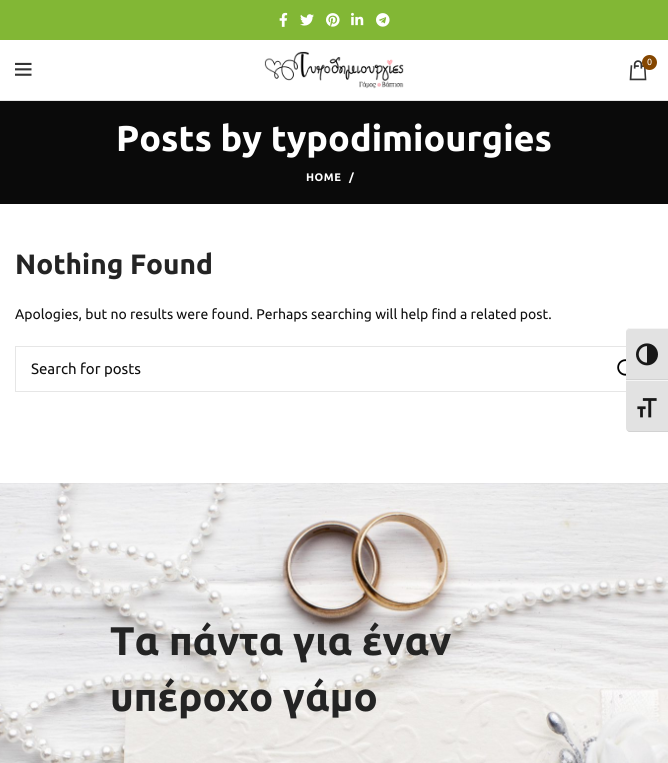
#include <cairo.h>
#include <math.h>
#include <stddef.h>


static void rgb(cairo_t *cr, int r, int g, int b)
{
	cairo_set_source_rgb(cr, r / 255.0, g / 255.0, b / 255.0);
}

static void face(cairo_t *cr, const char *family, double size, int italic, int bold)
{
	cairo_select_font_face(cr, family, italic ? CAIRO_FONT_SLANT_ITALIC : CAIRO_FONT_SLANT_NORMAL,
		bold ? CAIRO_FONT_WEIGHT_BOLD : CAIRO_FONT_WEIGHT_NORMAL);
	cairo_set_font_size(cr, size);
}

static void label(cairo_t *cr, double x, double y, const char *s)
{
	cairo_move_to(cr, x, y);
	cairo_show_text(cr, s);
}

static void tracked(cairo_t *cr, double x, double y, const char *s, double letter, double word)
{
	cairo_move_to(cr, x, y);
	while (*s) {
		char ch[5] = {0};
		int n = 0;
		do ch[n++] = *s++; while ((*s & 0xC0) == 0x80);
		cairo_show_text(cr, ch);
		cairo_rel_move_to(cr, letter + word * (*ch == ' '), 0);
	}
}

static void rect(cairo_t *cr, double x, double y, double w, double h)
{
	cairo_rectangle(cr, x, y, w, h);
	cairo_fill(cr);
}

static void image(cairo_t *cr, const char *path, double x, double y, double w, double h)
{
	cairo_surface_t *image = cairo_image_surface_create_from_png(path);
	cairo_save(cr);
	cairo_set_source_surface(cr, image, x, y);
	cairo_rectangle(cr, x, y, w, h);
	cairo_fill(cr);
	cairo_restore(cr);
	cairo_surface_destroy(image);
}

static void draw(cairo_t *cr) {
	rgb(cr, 255, 255, 255);
	cairo_paint(cr);
	rgb(cr, 130, 183, 53);
	rect(cr, 0, 0, 668, 40);
	image(cr, "image0.png", 279, 12, 9, 15);
	image(cr, "image1.png", 300, 14, 14, 12);
	image(cr, "image2.png", 326, 13, 14, 14);
	image(cr, "image3.png", 351, 12, 13, 14);
	image(cr, "image4.png", 376, 13, 14, 14);
	rgb(cr, 230, 230, 230);
	rect(cr, 0, 100, 668, 1);
	image(cr, "image5.png", 15, 62, 17, 14);
	image(cr, "image6.png", 264, 51, 140, 38);
	image(cr, "image7.png", 629, 60, 18, 21);
	rgb(cr, 132, 70, 0);
	cairo_arc(cr, 649.5, 62.5, 7.5, 0, 2 * M_PI);
	cairo_fill(cr);
	face(cr, "Ubuntu", 9, 0, 0);
	rgb(cr, 255, 255, 255);
	label(cr, 647, 65, "0");
	rgb(cr, 10, 10, 10);
	rect(cr, 0, 101, 668, 103);
	face(cr, "Ubuntu", 36, 0, 1);
	rgb(cr, 255, 255, 255);
	label(cr, 116, 151, "Posts by typodimiourgies");
	face(cr, "Ubuntu", 11, 0, 1);
	tracked(cr, 306, 181, "HOME", 0.5, 0);
	tracked(cr, 349, 181, "/", 0.5, 0);
	face(cr, "Ubuntu", 28, 0, 1);
	rgb(cr, 36, 36, 36);
	label(cr, 15, 274, "Nothing Found");
	face(cr, "Ubuntu", 14, 0, 0);
	rgb(cr, 15, 15, 15);
	label(cr, 15, 319, "Apologies, but no results were found. Perhaps searching will help find a related post.");
	cairo_rectangle(cr, 15.5, 346.5, 637, 45);
	rgb(cr, 230, 230, 230);
	cairo_set_line_width(cr, 1);
	cairo_stroke(cr);
	face(cr, "Ubuntu", 15, 0, 0);
	rgb(cr, 15, 15, 15);
	label(cr, 31, 374, "Search for posts");
	image(cr, "image8.png", 617, 359, 9, 17);
	image(cr, "image9.png", 0, 483, 668, 280);
	face(cr, "Ubuntu", 40, 0, 1);
	rgb(cr, 36, 36, 36);
	label(cr, 110, 655, "Τα πάντα για έναν");
	label(cr, 110, 711, "υπέροχο γάμο");
	rgb(cr, 226, 226, 226);
	cairo_new_path(cr);
	cairo_move_to(cr, 630, 328);
	cairo_line_to(cr, 668, 328);
	cairo_line_to(cr, 668, 380);
	cairo_line_to(cr, 626, 380);
	cairo_line_to(cr, 626, 332);
	cairo_curve_to(cr, 626, 330, 628, 328, 630, 328);
	cairo_close_path(cr);
	cairo_fill(cr);
	rgb(cr, 245, 245, 245);
	cairo_new_path(cr);
	cairo_move_to(cr, 630, 329);
	cairo_line_to(cr, 668, 329);
	cairo_line_to(cr, 668, 328);
	cairo_line_to(cr, 630, 328);
	cairo_curve_to(cr, 628, 328, 626, 330, 626, 332);
	cairo_curve_to(cr, 626, 330, 628, 329, 630, 329);
	cairo_close_path(cr);
	cairo_fill(cr);
	rgb(cr, 210, 210, 210);
	rect(cr, 626, 379, 42, 1);
	image(cr, "image10.png", 636, 343, 22, 23);
	rgb(cr, 226, 226, 226);
	cairo_new_path(cr);
	cairo_move_to(cr, 626, 380);
	cairo_line_to(cr, 668, 380);
	cairo_line_to(cr, 668, 432);
	cairo_line_to(cr, 630, 432);
	cairo_curve_to(cr, 628, 432, 626, 430, 626, 428);
	cairo_close_path(cr);
	cairo_fill(cr);
	rgb(cr, 245, 245, 245);
	rect(cr, 626, 380, 42, 1);
	rgb(cr, 210, 210, 210);
	cairo_new_path(cr);
	cairo_move_to(cr, 668, 432);
	cairo_line_to(cr, 668, 431);
	cairo_line_to(cr, 630, 431);
	cairo_curve_to(cr, 628, 431, 626, 430, 626, 428);
	cairo_curve_to(cr, 626, 430, 628, 432, 630, 432);
	cairo_close_path(cr);
	cairo_fill(cr);
	image(cr, "image11.png", 637, 398, 20, 20);
}

int main(void) {
	cairo_surface_t *surface = cairo_image_surface_create(CAIRO_FORMAT_RGB24, 668, 763);
	cairo_t *cr = cairo_create(surface);
	cairo_font_options_t *options = cairo_font_options_create();
	cairo_font_options_set_hint_metrics(options, CAIRO_HINT_METRICS_OFF);
	cairo_font_options_set_hint_style(options, CAIRO_HINT_STYLE_NONE);
	cairo_set_font_options(cr, options);
	cairo_set_miter_limit(cr, 4);
	draw(cr);
	cairo_surface_write_to_png(surface, "render.png");
	cairo_font_options_destroy(options);
	cairo_destroy(cr);
	cairo_surface_destroy(surface);
	return 0;
}
